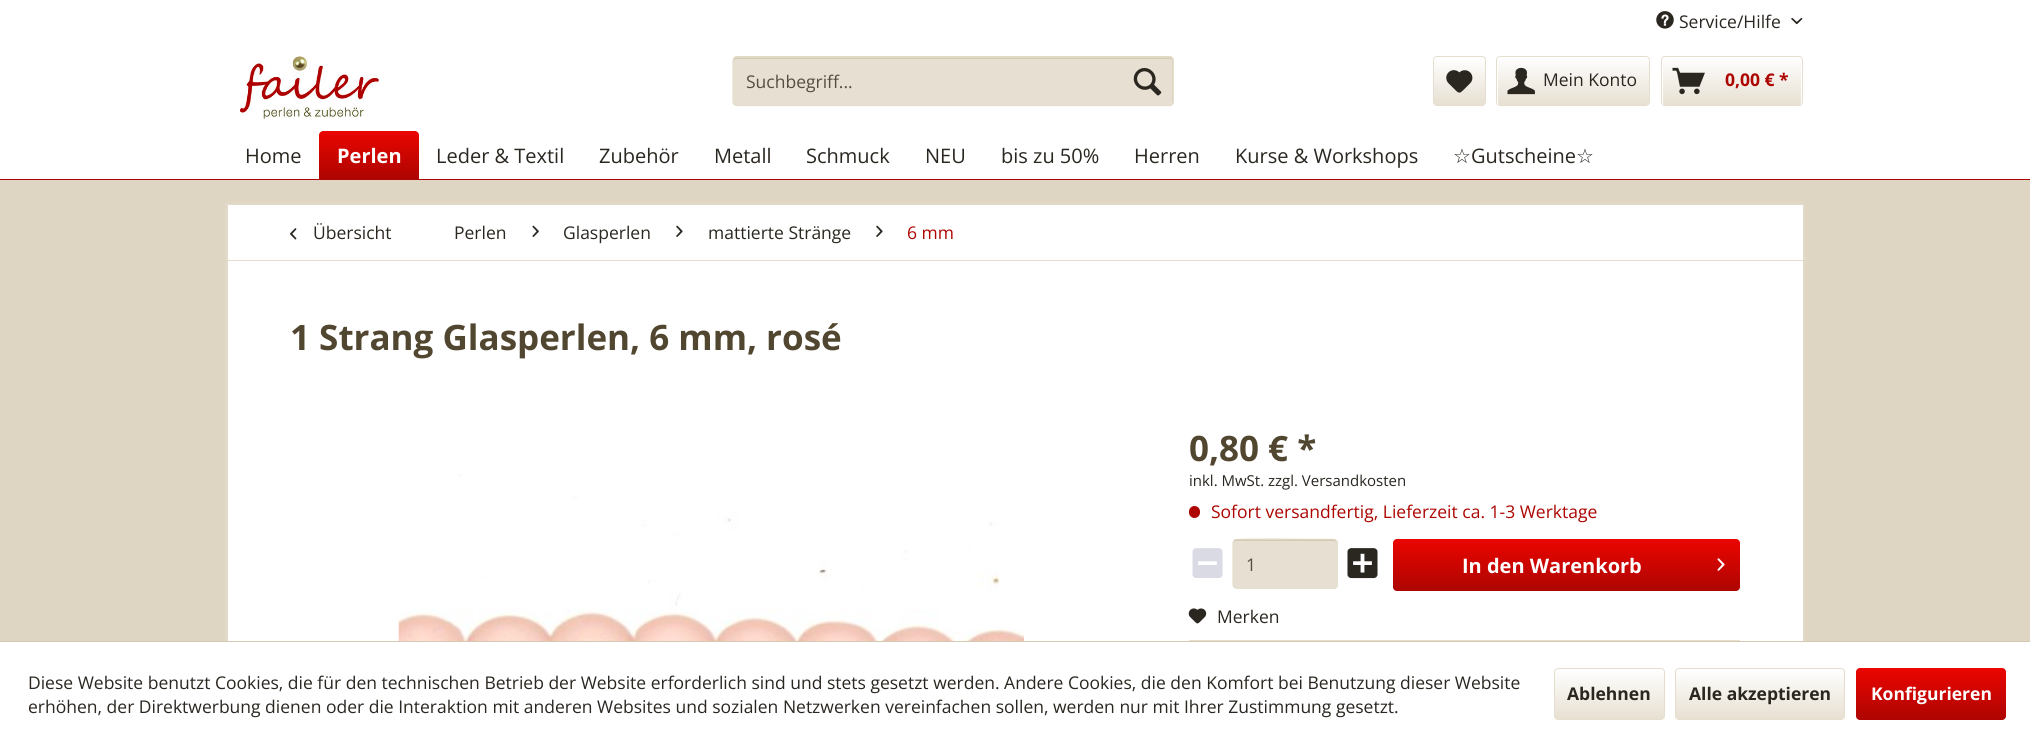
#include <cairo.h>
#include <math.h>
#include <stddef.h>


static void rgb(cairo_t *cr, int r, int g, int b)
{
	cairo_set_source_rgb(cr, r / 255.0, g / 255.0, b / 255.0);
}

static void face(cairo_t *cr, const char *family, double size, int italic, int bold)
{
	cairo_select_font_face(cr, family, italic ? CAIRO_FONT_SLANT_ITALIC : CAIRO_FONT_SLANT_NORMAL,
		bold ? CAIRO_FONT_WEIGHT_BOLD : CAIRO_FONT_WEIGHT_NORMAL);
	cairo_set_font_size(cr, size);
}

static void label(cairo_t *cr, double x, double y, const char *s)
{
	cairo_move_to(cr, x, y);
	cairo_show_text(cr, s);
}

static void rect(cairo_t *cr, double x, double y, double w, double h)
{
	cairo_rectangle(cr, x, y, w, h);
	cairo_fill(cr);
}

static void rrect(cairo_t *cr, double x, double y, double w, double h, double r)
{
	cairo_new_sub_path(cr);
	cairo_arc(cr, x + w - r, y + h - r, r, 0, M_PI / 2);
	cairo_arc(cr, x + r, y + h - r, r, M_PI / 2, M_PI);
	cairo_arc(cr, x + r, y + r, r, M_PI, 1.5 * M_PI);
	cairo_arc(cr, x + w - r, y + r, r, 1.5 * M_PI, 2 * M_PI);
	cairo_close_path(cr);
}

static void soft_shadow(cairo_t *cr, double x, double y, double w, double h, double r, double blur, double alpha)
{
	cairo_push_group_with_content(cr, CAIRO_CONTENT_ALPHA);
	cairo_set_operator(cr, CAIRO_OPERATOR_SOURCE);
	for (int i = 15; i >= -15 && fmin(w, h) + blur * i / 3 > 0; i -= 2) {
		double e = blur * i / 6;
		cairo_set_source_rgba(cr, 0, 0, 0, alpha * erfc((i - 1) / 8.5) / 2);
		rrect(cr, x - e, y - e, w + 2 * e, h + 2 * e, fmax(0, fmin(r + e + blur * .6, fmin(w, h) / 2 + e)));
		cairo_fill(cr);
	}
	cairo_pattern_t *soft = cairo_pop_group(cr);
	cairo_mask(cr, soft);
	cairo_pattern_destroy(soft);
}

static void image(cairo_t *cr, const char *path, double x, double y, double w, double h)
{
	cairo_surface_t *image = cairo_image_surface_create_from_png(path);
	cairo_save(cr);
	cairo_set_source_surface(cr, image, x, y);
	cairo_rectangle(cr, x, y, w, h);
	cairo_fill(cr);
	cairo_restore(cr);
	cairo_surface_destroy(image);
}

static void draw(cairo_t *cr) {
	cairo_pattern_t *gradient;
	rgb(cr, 222, 213, 194);
	cairo_paint(cr);
	rgb(cr, 255, 255, 255);
	rect(cr, 0, 0, 2030, 179);
	image(cr, "image0.png", 1656, 11, 18, 18);
	face(cr, "Open Sans", 17.5, 0, 0);
	rgb(cr, 42, 38, 32);
	label(cr, 1679, 28, "Service/Hilfe");
	image(cr, "image1.png", 1791, 17, 12, 8);
	image(cr, "image2.png", 240, 56, 139, 63);
	rgb(cr, 231, 224, 210);
	rrect(cr, 733, 56, 441, 50, 4);
	cairo_fill(cr);
	rgb(cr, 213, 202, 177);
	cairo_new_path(cr);
	cairo_move_to(cr, 736, 59);
	cairo_line_to(cr, 1170, 59);
	cairo_curve_to(cr, 1171, 59, 1172, 60, 1172, 61);
	cairo_line_to(cr, 1172, 105);
	cairo_curve_to(cr, 1173, 104, 1173, 103, 1173, 102);
	cairo_line_to(cr, 1173, 60);
	cairo_curve_to(cr, 1173, 59, 1172, 58, 1170, 58);
	cairo_line_to(cr, 736, 58);
	cairo_curve_to(cr, 735, 58, 734, 59, 734, 60);
	cairo_line_to(cr, 734, 61);
	cairo_curve_to(cr, 734, 60, 735, 59, 736, 59);
	cairo_close_path(cr);
	cairo_fill(cr);
	cairo_new_path(cr);
	cairo_move_to(cr, 734, 58);
	cairo_line_to(cr, 736, 57);
	cairo_line_to(cr, 1170, 57);
	cairo_line_to(cr, 1172, 58);
	rgb(cr, 220, 211, 190);
	cairo_set_line_width(cr, 1.2);
	cairo_stroke(cr);
	cairo_new_path(cr);
	cairo_move_to(cr, 1172, 58);
	cairo_line_to(cr, 1173, 60);
	cairo_line_to(cr, 1173, 102.5);
	cairo_line_to(cr, 1172, 104.5);
	cairo_line_to(cr, 1170, 105.5);
	cairo_line_to(cr, 736, 105.5);
	cairo_line_to(cr, 734, 104.5);
	cairo_line_to(cr, 733, 102.5);
	cairo_line_to(cr, 733, 60);
	cairo_line_to(cr, 734, 58);
	rgb(cr, 229, 222, 207);
	cairo_stroke(cr);
	rgb(cr, 85, 77, 65);
	label(cr, 746, 88, "Suchbegriff...");
	image(cr, "image3.png", 1133, 68, 29, 28);
	gradient = cairo_pattern_create_linear(1459, 58, 1459, 105);
	cairo_pattern_add_color_stop_rgba(gradient, 0, 1, 1, 1, 1);
	cairo_pattern_add_color_stop_rgba(gradient, 1, 0.906, 0.878, 0.824, 1);
	cairo_set_source(cr, gradient);
	cairo_pattern_destroy(gradient);
	rrect(cr, 1434, 58, 51, 47, 2.5);
	cairo_fill(cr);
	rrect(cr, 1433.5, 56.5, 52, 49, 3.5);
	rgb(cr, 229, 222, 207);
	cairo_set_line_width(cr, 1);
	cairo_stroke(cr);
	image(cr, "image4.png", 1446, 70, 27, 23);
	gradient = cairo_pattern_create_linear(1573, 57, 1573, 105);
	cairo_pattern_add_color_stop_rgba(gradient, 0, 1, 1, 1, 1);
	cairo_pattern_add_color_stop_rgba(gradient, 1, 0.906, 0.878, 0.824, 1);
	cairo_set_source(cr, gradient);
	cairo_pattern_destroy(gradient);
	rrect(cr, 1498, 58, 151, 47, 2.5);
	cairo_fill(cr);
	rrect(cr, 1496.5, 56.5, 153, 49, 3.5);
	rgb(cr, 229, 222, 207);
	cairo_stroke(cr);
	image(cr, "image5.png", 1507, 67, 28, 28);
	rgb(cr, 42, 38, 32);
	label(cr, 1543, 86, "Mein Konto");
	gradient = cairo_pattern_create_linear(1732, 57, 1732, 105);
	cairo_pattern_add_color_stop_rgba(gradient, 0, 1, 1, 1, 1);
	cairo_pattern_add_color_stop_rgba(gradient, 1, 0.906, 0.878, 0.824, 1);
	cairo_set_source(cr, gradient);
	cairo_pattern_destroy(gradient);
	rrect(cr, 1663, 58, 138, 47, 2.5);
	cairo_fill(cr);
	rrect(cr, 1661.5, 56.5, 141, 49, 3.5);
	rgb(cr, 229, 222, 207);
	cairo_stroke(cr);
	image(cr, "image6.png", 1672, 67, 33, 28);
	face(cr, "Open Sans", 17.5, 0, 1);
	rgb(cr, 173, 5, 1);
	label(cr, 1725, 86, "0,00 € *");
	rect(cr, 0, 179, 2030, 1);
	face(cr, "Open Sans", 20, 0, 0);
	rgb(cr, 42, 38, 32);
	label(cr, 245, 163, "Home");
	gradient = cairo_pattern_create_linear(369, 131, 369, 179);
	cairo_pattern_add_color_stop_rgba(gradient, 0, 0.922, 0.02, 0, 1);
	cairo_pattern_add_color_stop_rgba(gradient, 1, 0.678, 0.02, 0.004, 1);
	cairo_set_source(cr, gradient);
	cairo_pattern_destroy(gradient);
	cairo_new_path(cr);
	cairo_move_to(cr, 323, 131);
	cairo_line_to(cr, 415, 131);
	cairo_curve_to(cr, 417, 131, 419, 133, 419, 135);
	cairo_line_to(cr, 419, 179);
	cairo_line_to(cr, 319, 179);
	cairo_line_to(cr, 319, 135);
	cairo_curve_to(cr, 319, 133, 321, 131, 323, 131);
	cairo_close_path(cr);
	cairo_fill(cr);
	face(cr, "Open Sans", 20, 0, 1);
	rgb(cr, 255, 255, 255);
	label(cr, 337, 163, "Perlen");
	face(cr, "Open Sans", 20, 0, 0);
	rgb(cr, 42, 38, 32);
	label(cr, 436, 163, "Leder & Textil");
	label(cr, 599, 163, "Zubehör");
	label(cr, 714, 163, "Metall");
	label(cr, 806, 163, "Schmuck");
	label(cr, 925, 163, "NEU");
	label(cr, 1001, 163, "bis zu 50%");
	label(cr, 1134, 163, "Herren");
	label(cr, 1235, 163, "Kurse & Workshops");
	face(cr, "DejaVu Sans", 20, 0, 0);
	label(cr, 1453, 163, "☆");
	face(cr, "Open Sans", 20, 0, 0);
	label(cr, 1471, 163, "Gutscheine");
	face(cr, "DejaVu Sans", 20, 0, 0);
	label(cr, 1576, 163, "☆");
	rgb(cr, 229, 222, 207);
	soft_shadow(cr, 226, 204, 1578, 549, 0, 2.5, 1);
	rgb(cr, 255, 255, 255);
	rect(cr, 228, 205, 1575, 436);
	rgb(cr, 229, 222, 207);
	rect(cr, 228, 260, 1575, 1);
	image(cr, "image7.png", 290, 228, 7, 12);
	face(cr, "Open Sans", 17.5, 0, 0);
	rgb(cr, 42, 38, 32);
	label(cr, 313, 239, "Übersicht");
	label(cr, 454, 239, "Perlen");
	image(cr, "image8.png", 532, 225, 7, 12);
	label(cr, 563, 239, "Glasperlen");
	image(cr, "image9.png", 676, 225, 7, 12);
	label(cr, 708, 239, "mattierte Stränge");
	image(cr, "image9.png", 876, 225, 7, 12);
	rgb(cr, 173, 5, 1);
	label(cr, 907, 239, "6 mm");
	face(cr, "Open Sans", 35, 0, 1);
	rgb(cr, 81, 70, 48);
	label(cr, 290, 350, "1 Strang Glasperlen, 6 mm, rosé");
	image(cr, "image10.png", 398, 474, 626, 167);
	label(cr, 1189, 461, "0,80 € *");
	face(cr, "Open Sans", 15, 0, 0);
	rgb(cr, 42, 38, 32);
	label(cr, 1189, 486, "inkl. MwSt. zzgl. Versandkosten");
	rgb(cr, 173, 5, 1);
	rrect(cr, 1189, 506, 11, 12, 5.5);
	cairo_fill(cr);
	face(cr, "Open Sans", 17.5, 0, 0);
	label(cr, 1211, 518, "Sofort versandfertig, Lieferzeit ca. 1-3 Werktage");
	image(cr, "image11.png", 1192, 548, 31, 30);
	rgb(cr, 231, 224, 210);
	rrect(cr, 1233, 539, 105, 50, 4);
	cairo_fill(cr);
	rgb(cr, 213, 202, 177);
	cairo_new_path(cr);
	cairo_move_to(cr, 1236, 541);
	cairo_line_to(cr, 1334, 541);
	cairo_curve_to(cr, 1335, 541, 1336, 542, 1336, 544);
	cairo_line_to(cr, 1336, 542);
	cairo_curve_to(cr, 1336, 541, 1335, 540, 1334, 540);
	cairo_line_to(cr, 1236, 540);
	cairo_curve_to(cr, 1235, 540, 1234, 541, 1234, 542);
	cairo_line_to(cr, 1234, 544);
	cairo_curve_to(cr, 1234, 542, 1235, 541, 1236, 541);
	cairo_close_path(cr);
	cairo_fill(cr);
	cairo_new_path(cr);
	cairo_move_to(cr, 1234, 540.5);
	cairo_line_to(cr, 1234.5, 540);
	cairo_curve_to(cr, 1236.5, 538.5, 1308.5, 539.5, 1317.5, 539.5);
	cairo_line_to(cr, 1334, 539.5);
	cairo_line_to(cr, 1336, 540.5);
	rgb(cr, 220, 211, 190);
	cairo_set_line_width(cr, 1.2);
	cairo_stroke(cr);
	cairo_new_path(cr);
	cairo_move_to(cr, 1336, 540.5);
	cairo_line_to(cr, 1337, 542.5);
	cairo_line_to(cr, 1337, 585);
	cairo_line_to(cr, 1336, 587);
	cairo_line_to(cr, 1334, 588);
	cairo_line_to(cr, 1236, 588);
	cairo_line_to(cr, 1234, 587);
	cairo_line_to(cr, 1233, 585);
	cairo_line_to(cr, 1233, 542.5);
	cairo_line_to(cr, 1234, 540.5);
	rgb(cr, 229, 222, 207);
	cairo_stroke(cr);
	rgb(cr, 85, 77, 65);
	label(cr, 1246, 571, "1");
	image(cr, "image12.png", 1347, 548, 31, 31);
	gradient = cairo_pattern_create_linear(1566, 539, 1566, 591);
	cairo_pattern_add_color_stop_rgba(gradient, 0, 0.922, 0.02, 0, 1);
	cairo_pattern_add_color_stop_rgba(gradient, 1, 0.678, 0.02, 0.004, 1);
	cairo_set_source(cr, gradient);
	cairo_pattern_destroy(gradient);
	rrect(cr, 1393, 539, 347, 52, 4);
	cairo_fill(cr);
	face(cr, "Open Sans", 20, 0, 1);
	rgb(cr, 255, 255, 255);
	label(cr, 1462, 573, "In den Warenkorb");
	image(cr, "image13.png", 1717, 558, 8, 13);
	rgb(cr, 229, 222, 207);
	rect(cr, 1189, 640, 551, 1);
	image(cr, "image14.png", 1188, 608, 19, 16);
	face(cr, "Open Sans", 17.5, 0, 0);
	rgb(cr, 42, 38, 32);
	label(cr, 1217, 623, "Merken");
	rgb(cr, 255, 255, 255);
	rect(cr, 0, 642, 2030, 103);
	rgb(cr, 213, 202, 177);
	rect(cr, 0, 641, 2030, 1);
	rgb(cr, 42, 38, 32);
	label(cr, 28, 689, "Diese Website benutzt Cookies, die für den technischen Betrieb der Website erforderlich sind und stets gesetzt werden. Andere Cookies, die den Komfort bei Benutzung dieser Website");
	label(cr, 28, 713, "erhöhen, der Direktwerbung dienen oder die Interaktion mit anderen Websites und sozialen Netzwerken vereinfachen sollen, werden nur mit Ihrer Zustimmung gesetzt.");
	gradient = cairo_pattern_create_linear(1609, 669, 1609, 719);
	cairo_pattern_add_color_stop_rgba(gradient, 0, 1, 1, 1, 1);
	cairo_pattern_add_color_stop_rgba(gradient, 1, 0.906, 0.878, 0.824, 1);
	cairo_set_source(cr, gradient);
	cairo_pattern_destroy(gradient);
	rrect(cr, 1555, 669, 109, 50, 2.5);
	cairo_fill(cr);
	rrect(cr, 1554.5, 668.5, 110, 51, 3.5);
	rgb(cr, 229, 222, 207);
	cairo_set_line_width(cr, 1);
	cairo_stroke(cr);
	face(cr, "Open Sans", 17.5, 0, 1);
	rgb(cr, 42, 38, 32);
	label(cr, 1567, 700, "Ablehnen");
	gradient = cairo_pattern_create_linear(1760, 669, 1760, 719);
	cairo_pattern_add_color_stop_rgba(gradient, 0, 1, 1, 1, 1);
	cairo_pattern_add_color_stop_rgba(gradient, 1, 0.906, 0.878, 0.824, 1);
	cairo_set_source(cr, gradient);
	cairo_pattern_destroy(gradient);
	rrect(cr, 1676, 669, 168, 50, 2.5);
	cairo_fill(cr);
	rrect(cr, 1675.5, 668.5, 169, 51, 3.5);
	rgb(cr, 229, 222, 207);
	cairo_stroke(cr);
	rgb(cr, 42, 38, 32);
	label(cr, 1689, 700, "Alle akzeptieren");
	gradient = cairo_pattern_create_linear(1931, 668, 1931, 720);
	cairo_pattern_add_color_stop_rgba(gradient, 0, 0.922, 0.02, 0, 1);
	cairo_pattern_add_color_stop_rgba(gradient, 1, 0.678, 0.02, 0.004, 1);
	cairo_set_source(cr, gradient);
	cairo_pattern_destroy(gradient);
	rrect(cr, 1856, 668, 150, 52, 4);
	cairo_fill(cr);
	rgb(cr, 255, 255, 255);
	label(cr, 1871, 700, "Konfigurieren");
}

int main(void) {
	cairo_surface_t *surface = cairo_image_surface_create(CAIRO_FORMAT_RGB24, 2030, 745);
	cairo_t *cr = cairo_create(surface);
	cairo_font_options_t *options = cairo_font_options_create();
	cairo_font_options_set_hint_metrics(options, CAIRO_HINT_METRICS_OFF);
	cairo_font_options_set_hint_style(options, CAIRO_HINT_STYLE_NONE);
	cairo_set_font_options(cr, options);
	cairo_set_miter_limit(cr, 4);
	draw(cr);
	cairo_surface_write_to_png(surface, "render.png");
	cairo_font_options_destroy(options);
	cairo_destroy(cr);
	cairo_surface_destroy(surface);
	return 0;
}
